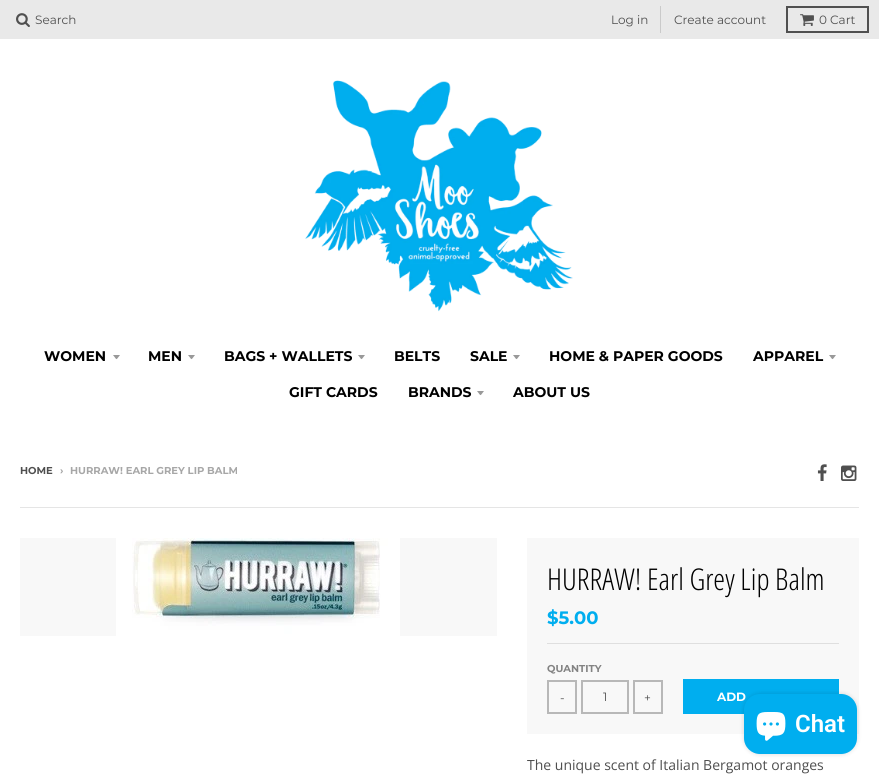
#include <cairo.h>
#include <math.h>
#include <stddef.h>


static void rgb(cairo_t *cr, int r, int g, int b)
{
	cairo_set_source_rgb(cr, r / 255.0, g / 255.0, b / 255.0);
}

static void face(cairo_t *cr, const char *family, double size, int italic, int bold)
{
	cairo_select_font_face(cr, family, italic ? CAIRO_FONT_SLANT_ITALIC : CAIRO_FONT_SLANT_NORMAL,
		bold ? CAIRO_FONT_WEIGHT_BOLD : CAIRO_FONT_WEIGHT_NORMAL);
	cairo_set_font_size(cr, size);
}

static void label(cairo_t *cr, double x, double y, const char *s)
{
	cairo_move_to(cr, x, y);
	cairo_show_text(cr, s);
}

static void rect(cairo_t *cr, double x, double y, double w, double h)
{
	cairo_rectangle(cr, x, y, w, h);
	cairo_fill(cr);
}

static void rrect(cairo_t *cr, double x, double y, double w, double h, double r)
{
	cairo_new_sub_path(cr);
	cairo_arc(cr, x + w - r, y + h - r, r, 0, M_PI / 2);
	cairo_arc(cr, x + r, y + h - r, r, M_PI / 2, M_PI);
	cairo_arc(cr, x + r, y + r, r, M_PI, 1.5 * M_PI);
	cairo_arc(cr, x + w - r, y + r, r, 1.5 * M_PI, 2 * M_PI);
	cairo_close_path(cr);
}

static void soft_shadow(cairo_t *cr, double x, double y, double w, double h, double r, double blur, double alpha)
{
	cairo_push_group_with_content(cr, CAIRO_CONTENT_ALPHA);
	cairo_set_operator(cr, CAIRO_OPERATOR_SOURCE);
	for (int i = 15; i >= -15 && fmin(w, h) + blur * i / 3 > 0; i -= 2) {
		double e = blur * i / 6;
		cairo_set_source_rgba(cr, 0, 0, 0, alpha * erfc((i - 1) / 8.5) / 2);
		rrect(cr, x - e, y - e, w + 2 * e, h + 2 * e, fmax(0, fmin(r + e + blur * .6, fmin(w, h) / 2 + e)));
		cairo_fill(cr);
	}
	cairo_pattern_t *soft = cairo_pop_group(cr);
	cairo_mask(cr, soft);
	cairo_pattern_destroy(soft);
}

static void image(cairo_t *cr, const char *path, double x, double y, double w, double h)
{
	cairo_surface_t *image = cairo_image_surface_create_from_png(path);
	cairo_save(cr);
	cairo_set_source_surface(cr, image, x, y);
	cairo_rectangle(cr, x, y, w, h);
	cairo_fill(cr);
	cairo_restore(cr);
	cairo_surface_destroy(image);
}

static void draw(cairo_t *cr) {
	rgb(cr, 255, 255, 255);
	cairo_paint(cr);
	rgb(cr, 233, 233, 233);
	rect(cr, 0, 0, 879, 39);
	image(cr, "image0.png", 16, 13, 14, 14);
	face(cr, "Montserrat", 12, 0, 0);
	rgb(cr, 79, 79, 79);
	label(cr, 35, 24, "Search");
	rgb(cr, 202, 202, 202);
	rect(cr, 660, 6, 1, 27);
	rgb(cr, 79, 79, 79);
	label(cr, 611, 24, "Log in");
	label(cr, 674, 24, "Create account");
	cairo_rectangle(cr, 787, 7, 81, 25);
	rgb(cr, 80, 80, 80);
	cairo_stroke(cr);
	image(cr, "image1.png", 800, 14, 14, 12);
	rgb(cr, 79, 79, 79);
	label(cr, 819, 24, "0 Cart");
	image(cr, "image2.png", 305, 80, 268, 232);
	face(cr, "Montserrat", 14, 0, 1);
	rgb(cr, 0, 0, 0);
	label(cr, 44, 361, "WOMEN");
	rgb(cr, 153, 153, 153);
	cairo_new_path(cr);
	cairo_move_to(cr, 113, 355);
	cairo_curve_to(cr, 117.5, 360.5, 115.5, 360.5, 120, 355);
	cairo_close_path(cr);
	cairo_fill(cr);
	rgb(cr, 0, 0, 0);
	label(cr, 148, 361, "MEN");
	rgb(cr, 153, 153, 153);
	cairo_new_path(cr);
	cairo_move_to(cr, 188, 355);
	cairo_curve_to(cr, 192.5, 360.5, 190.5, 360.5, 195, 355);
	cairo_close_path(cr);
	cairo_fill(cr);
	rgb(cr, 0, 0, 0);
	label(cr, 224, 361, "BAGS + WALLETS");
	rgb(cr, 153, 153, 153);
	cairo_new_path(cr);
	cairo_move_to(cr, 358, 355);
	cairo_curve_to(cr, 362.5, 360.5, 360.5, 360.5, 365, 355);
	cairo_close_path(cr);
	cairo_fill(cr);
	rgb(cr, 0, 0, 0);
	label(cr, 394, 361, "BELTS");
	label(cr, 470, 361, "SALE");
	rgb(cr, 153, 153, 153);
	cairo_new_path(cr);
	cairo_move_to(cr, 513, 355);
	cairo_curve_to(cr, 517.5, 360.5, 515.5, 360.5, 520, 355);
	cairo_close_path(cr);
	cairo_fill(cr);
	rgb(cr, 0, 0, 0);
	label(cr, 549, 361, "HOME & PAPER GOODS");
	label(cr, 753, 361, "APPAREL");
	rgb(cr, 153, 153, 153);
	cairo_new_path(cr);
	cairo_move_to(cr, 829, 355);
	cairo_curve_to(cr, 833.5, 360.5, 831.5, 360.5, 836, 355);
	cairo_close_path(cr);
	cairo_fill(cr);
	rgb(cr, 0, 0, 0);
	label(cr, 289, 397, "GIFT CARDS");
	label(cr, 408, 397, "BRANDS");
	rgb(cr, 153, 153, 153);
	cairo_new_path(cr);
	cairo_move_to(cr, 477, 391);
	cairo_curve_to(cr, 481.5, 396.5, 479.5, 396.5, 484, 391);
	cairo_close_path(cr);
	cairo_fill(cr);
	rgb(cr, 0, 0, 0);
	label(cr, 513, 397, "ABOUT US");
	face(cr, "Montserrat", 10, 0, 1);
	rgb(cr, 79, 79, 79);
	label(cr, 20, 474, "HOME");
	rgb(cr, 167, 167, 167);
	label(cr, 60, 474, "›");
	label(cr, 70, 474, "HURRAW! EARL GREY LIP BALM");
	image(cr, "image3.png", 817, 464, 10, 17);
	image(cr, "image4.png", 841, 465, 16, 16);
	rgb(cr, 229, 229, 229);
	rect(cr, 20, 507, 839, 1);
	rgb(cr, 248, 248, 248);
	rect(cr, 20, 538, 477, 98);
	image(cr, "image5.png", 116, 538, 284, 98);
	rect(cr, 527, 538, 332, 196);
	face(cr, "Open Sans Condensed Light", 30, 0, 0);
	rgb(cr, 0, 0, 0);
	label(cr, 547, 590, "HURRAW! Earl Grey Lip Balm");
	rgb(cr, 223, 223, 223);
	rect(cr, 547, 643, 292, 1);
	face(cr, "Montserrat", 18, 0, 1);
	rgb(cr, 0, 174, 239);
	label(cr, 547, 624, "$5.00");
	face(cr, "Montserrat", 10, 0, 1);
	rgb(cr, 131, 131, 131);
	label(cr, 547, 672, "QUANTITY");
	cairo_rectangle(cr, 548, 681, 28, 32);
	rgb(cr, 184, 184, 184);
	cairo_stroke(cr);
	face(cr, "Montserrat", 12, 0, 0);
	rgb(cr, 79, 79, 79);
	label(cr, 560, 702, "-");
	cairo_rectangle(cr, 582, 681, 46, 32);
	rgb(cr, 184, 184, 184);
	cairo_stroke(cr);
	rgb(cr, 79, 79, 79);
	label(cr, 603, 701, "1");
	cairo_rectangle(cr, 634, 681, 28, 32);
	rgb(cr, 184, 184, 184);
	cairo_stroke(cr);
	rgb(cr, 79, 79, 79);
	label(cr, 644, 702, "+");
	rgb(cr, 0, 174, 239);
	rect(cr, 683, 679, 156, 35);
	face(cr, "Montserrat", 12, 0, 1);
	rgb(cr, 255, 255, 255);
	label(cr, 717, 701, "ADD");
	face(cr, "Open Sans", 14, 0, 0);
	rgb(cr, 79, 79, 79);
	label(cr, 527, 770, "The unique scent of Italian Bergamot oranges");
	rgb(cr, 0, 0, 0);
	soft_shadow(cr, 744, 694, 113, 60, 16, 2.5, 0.15);
	rgb(cr, 0, 174, 239);
	rrect(cr, 744, 694, 113, 60, 16);
	cairo_fill(cr);
	image(cr, "image6.png", 756, 712, 30, 29);
	face(cr, "Roboto SemiBold", 24, 0, 0);
	rgb(cr, 255, 255, 255);
	label(cr, 795, 732, "Chat");
}

int main(void) {
	cairo_surface_t *surface = cairo_image_surface_create(CAIRO_FORMAT_RGB24, 879, 775);
	cairo_t *cr = cairo_create(surface);
	cairo_font_options_t *options = cairo_font_options_create();
	cairo_font_options_set_hint_metrics(options, CAIRO_HINT_METRICS_OFF);
	cairo_font_options_set_hint_style(options, CAIRO_HINT_STYLE_NONE);
	cairo_set_font_options(cr, options);
	cairo_set_miter_limit(cr, 4);
	draw(cr);
	cairo_surface_write_to_png(surface, "render.png");
	cairo_font_options_destroy(options);
	cairo_destroy(cr);
	cairo_surface_destroy(surface);
	return 0;
}
